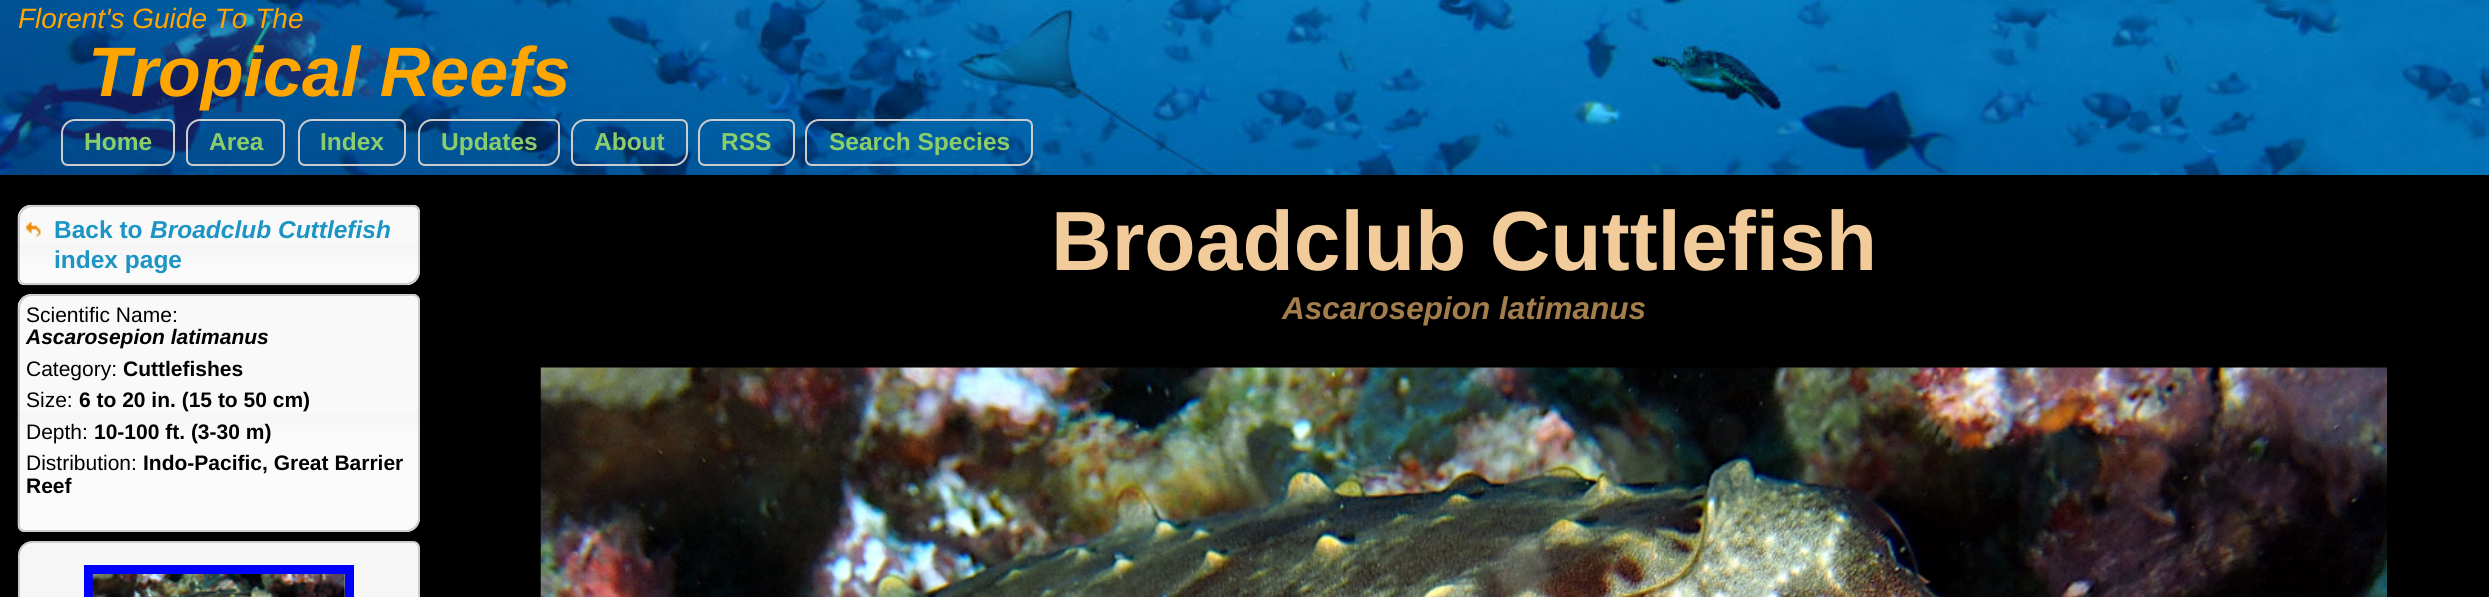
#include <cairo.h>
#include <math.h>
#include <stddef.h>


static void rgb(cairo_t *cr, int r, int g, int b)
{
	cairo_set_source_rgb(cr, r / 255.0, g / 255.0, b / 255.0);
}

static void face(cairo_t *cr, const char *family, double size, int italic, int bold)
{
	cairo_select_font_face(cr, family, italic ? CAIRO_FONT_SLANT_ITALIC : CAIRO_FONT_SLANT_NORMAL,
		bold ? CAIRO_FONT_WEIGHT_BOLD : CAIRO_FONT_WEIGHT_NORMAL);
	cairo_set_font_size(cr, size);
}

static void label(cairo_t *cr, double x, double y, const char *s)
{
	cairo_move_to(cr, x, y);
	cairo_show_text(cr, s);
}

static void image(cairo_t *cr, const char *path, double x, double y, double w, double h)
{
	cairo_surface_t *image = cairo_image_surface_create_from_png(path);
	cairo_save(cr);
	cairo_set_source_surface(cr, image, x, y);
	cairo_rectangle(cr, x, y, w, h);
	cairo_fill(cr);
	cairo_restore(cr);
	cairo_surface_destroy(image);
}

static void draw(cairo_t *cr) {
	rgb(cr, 0, 0, 0);
	cairo_paint(cr);
	image(cr, "image0.png", 0, 0, 2489, 175);
	face(cr, "Liberation Sans", 28, 1, 0);
	rgb(cr, 255, 165, 0);
	label(cr, 18, 28, "Florent's Guide To The");
	face(cr, "Liberation Sans", 70, 1, 1);
	label(cr, 88, 96, "Tropical Reefs");
	cairo_new_path(cr);
	cairo_move_to(cr, 75, 120);
	cairo_line_to(cr, 168, 120);
	cairo_curve_to(cr, 171.5, 120, 174, 122.5, 174, 126);
	cairo_line_to(cr, 174, 152);
	cairo_curve_to(cr, 174, 159, 168, 165, 161, 165);
	cairo_line_to(cr, 68, 165);
	cairo_curve_to(cr, 64.5, 165, 62, 162.5, 62, 159);
	cairo_line_to(cr, 62, 133);
	cairo_curve_to(cr, 62, 126, 68, 120, 75, 120);
	cairo_close_path(cr);
	rgb(cr, 204, 204, 204);
	cairo_stroke(cr);
	face(cr, "Liberation Sans", 24.5, 0, 1);
	rgb(cr, 139, 205, 107);
	label(cr, 84, 150, "Home");
	cairo_new_path(cr);
	cairo_move_to(cr, 200, 120);
	cairo_line_to(cr, 278, 120);
	cairo_curve_to(cr, 281.5, 120, 284, 122.5, 284, 126);
	cairo_line_to(cr, 284, 152);
	cairo_curve_to(cr, 284, 159, 278, 165, 271, 165);
	cairo_line_to(cr, 193, 165);
	cairo_curve_to(cr, 189.5, 165, 187, 162.5, 187, 159);
	cairo_line_to(cr, 187, 133);
	cairo_curve_to(cr, 187, 126, 193, 120, 200, 120);
	cairo_close_path(cr);
	rgb(cr, 204, 204, 204);
	cairo_stroke(cr);
	rgb(cr, 139, 205, 107);
	label(cr, 209, 150, "Area");
	cairo_new_path(cr);
	cairo_move_to(cr, 312, 120);
	cairo_line_to(cr, 399, 120);
	cairo_curve_to(cr, 402.5, 120, 405, 122.5, 405, 126);
	cairo_line_to(cr, 405, 152);
	cairo_curve_to(cr, 405, 159, 399, 165, 392, 165);
	cairo_line_to(cr, 305, 165);
	cairo_curve_to(cr, 301.5, 165, 299, 162.5, 299, 159);
	cairo_line_to(cr, 299, 133);
	cairo_curve_to(cr, 299, 126, 305, 120, 312, 120);
	cairo_close_path(cr);
	rgb(cr, 204, 204, 204);
	cairo_stroke(cr);
	rgb(cr, 139, 205, 107);
	label(cr, 320, 150, "Index");
	cairo_new_path(cr);
	cairo_move_to(cr, 432, 120);
	cairo_line_to(cr, 553, 120);
	cairo_curve_to(cr, 556.5, 120, 559, 122.5, 559, 126);
	cairo_line_to(cr, 559, 152);
	cairo_curve_to(cr, 559, 159, 553, 165, 546, 165);
	cairo_line_to(cr, 425, 165);
	cairo_curve_to(cr, 421.5, 165, 419, 162.5, 419, 159);
	cairo_line_to(cr, 419, 133);
	cairo_curve_to(cr, 419, 126, 425, 120, 432, 120);
	cairo_close_path(cr);
	rgb(cr, 204, 204, 204);
	cairo_stroke(cr);
	rgb(cr, 139, 205, 107);
	label(cr, 441, 150, "Updates");
	cairo_new_path(cr);
	cairo_move_to(cr, 585, 120);
	cairo_line_to(cr, 681, 120);
	cairo_curve_to(cr, 684.5, 120, 687, 122.5, 687, 126);
	cairo_line_to(cr, 687, 152);
	cairo_curve_to(cr, 687, 159, 681, 165, 674, 165);
	cairo_line_to(cr, 578, 165);
	cairo_curve_to(cr, 574.5, 165, 572, 162.5, 572, 159);
	cairo_line_to(cr, 572, 133);
	cairo_curve_to(cr, 572, 126, 578, 120, 585, 120);
	cairo_close_path(cr);
	rgb(cr, 204, 204, 204);
	cairo_stroke(cr);
	rgb(cr, 139, 205, 107);
	label(cr, 594, 150, "About");
	cairo_new_path(cr);
	cairo_move_to(cr, 712, 120);
	cairo_line_to(cr, 788, 120);
	cairo_curve_to(cr, 791.5, 120, 794, 122.5, 794, 126);
	cairo_line_to(cr, 794, 152);
	cairo_curve_to(cr, 794, 159, 788, 165, 781, 165);
	cairo_line_to(cr, 705, 165);
	cairo_curve_to(cr, 701.5, 165, 699, 162.5, 699, 159);
	cairo_line_to(cr, 699, 133);
	cairo_curve_to(cr, 699, 126, 705, 120, 712, 120);
	cairo_close_path(cr);
	rgb(cr, 204, 204, 204);
	cairo_stroke(cr);
	rgb(cr, 139, 205, 107);
	label(cr, 721, 150, "RSS");
	cairo_new_path(cr);
	cairo_move_to(cr, 819, 120);
	cairo_line_to(cr, 1026, 120);
	cairo_curve_to(cr, 1029.5, 120, 1032, 122.5, 1032, 126);
	cairo_line_to(cr, 1032, 152);
	cairo_curve_to(cr, 1032, 159, 1026, 165, 1019, 165);
	cairo_line_to(cr, 812, 165);
	cairo_curve_to(cr, 808.5, 165, 806, 162.5, 806, 159);
	cairo_line_to(cr, 806, 133);
	cairo_curve_to(cr, 806, 126, 812, 120, 819, 120);
	cairo_close_path(cr);
	rgb(cr, 204, 204, 204);
	cairo_stroke(cr);
	rgb(cr, 139, 205, 107);
	label(cr, 829, 150, "Search Species");
	image(cr, "image1.png", 17, 204, 403, 82);
	cairo_new_path(cr);
	cairo_move_to(cr, 32, 206);
	cairo_line_to(cr, 413, 206);
	cairo_curve_to(cr, 416.5, 206, 419, 208.5, 419, 212);
	cairo_line_to(cr, 419, 271);
	cairo_curve_to(cr, 419, 278, 413, 284, 406, 284);
	cairo_line_to(cr, 25, 284);
	cairo_curve_to(cr, 21.5, 284, 19, 281.5, 19, 278);
	cairo_line_to(cr, 19, 219);
	cairo_curve_to(cr, 19, 212, 25, 206, 32, 206);
	cairo_close_path(cr);
	rgb(cr, 204, 204, 204);
	cairo_stroke(cr);
	image(cr, "image2.png", 25, 221, 16, 16);
	rgb(cr, 28, 148, 196);
	label(cr, 54, 238, "Back to");
	face(cr, "Liberation Sans", 24.5, 1, 1);
	label(cr, 150, 238, "Broadclub Cuttlefish");
	face(cr, "Liberation Sans", 24.5, 0, 1);
	label(cr, 54, 268, "index page");
	image(cr, "image3.png", 17, 294, 403, 238);
	cairo_new_path(cr);
	cairo_move_to(cr, 32, 295);
	cairo_line_to(cr, 413, 295);
	cairo_curve_to(cr, 416.5, 295, 419, 297.5, 419, 301);
	cairo_line_to(cr, 419, 518);
	cairo_curve_to(cr, 419, 525, 413, 531, 406, 531);
	cairo_line_to(cr, 25, 531);
	cairo_curve_to(cr, 21.5, 531, 19, 528.5, 19, 525);
	cairo_line_to(cr, 19, 308);
	cairo_curve_to(cr, 19, 301, 25, 295, 32, 295);
	cairo_close_path(cr);
	rgb(cr, 204, 204, 204);
	cairo_stroke(cr);
	face(cr, "Liberation Sans", 21, 0, 0);
	rgb(cr, 0, 0, 0);
	label(cr, 26, 322, "Scientific Name:");
	face(cr, "Liberation Sans", 21, 1, 1);
	label(cr, 26, 344, "Ascarosepion latimanus");
	face(cr, "Liberation Sans", 21, 0, 0);
	label(cr, 26, 376, "Category:");
	face(cr, "Liberation Sans", 21, 0, 1);
	label(cr, 123, 376, "Cuttlefishes");
	face(cr, "Liberation Sans", 21, 0, 0);
	label(cr, 26, 407, "Size:");
	face(cr, "Liberation Sans", 21, 0, 1);
	label(cr, 79, 407, "6 to 20 in. (15 to 50 cm)");
	face(cr, "Liberation Sans", 21, 0, 0);
	label(cr, 26, 439, "Depth:");
	face(cr, "Liberation Sans", 21, 0, 1);
	label(cr, 94, 439, "10-100 ft. (3-30 m)");
	face(cr, "Liberation Sans", 21, 0, 0);
	label(cr, 26, 470, "Distribution:");
	face(cr, "Liberation Sans", 21, 0, 1);
	label(cr, 143, 470, "Indo-Pacific, Great Barrier");
	label(cr, 26, 493, "Reef");
	rgb(cr, 246, 246, 246);
	cairo_new_path(cr);
	cairo_move_to(cr, 32, 542);
	cairo_line_to(cr, 413, 542);
	cairo_curve_to(cr, 416.5, 542, 419, 544.5, 419, 548);
	cairo_line_to(cr, 419, 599);
	cairo_curve_to(cr, 419, 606, 413, 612, 406, 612);
	cairo_line_to(cr, 25, 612);
	cairo_curve_to(cr, 21.5, 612, 19, 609.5, 19, 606);
	cairo_line_to(cr, 19, 555);
	cairo_curve_to(cr, 19, 548, 25, 542, 32, 542);
	cairo_close_path(cr);
	cairo_fill_preserve(cr);
	rgb(cr, 204, 204, 204);
	cairo_stroke(cr);
	cairo_rectangle(cr, 88.5, 569.5, 261, 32);
	rgb(cr, 0, 0, 255);
	cairo_set_line_width(cr, 9);
	cairo_stroke(cr);
	image(cr, "image4.png", 92, 574, 253, 23);
	face(cr, "Liberation Sans", 84, 0, 1);
	rgb(cr, 241, 203, 153);
	label(cr, 1051, 270, "Broadclub Cuttlefish");
	face(cr, "Liberation Sans", 31.5, 1, 1);
	rgb(cr, 163, 125, 76);
	label(cr, 1282, 319, "Ascarosepion latimanus");
	image(cr, "image5.png", 540, 367, 1847, 230);
}

int main(void) {
	cairo_surface_t *surface = cairo_image_surface_create(CAIRO_FORMAT_RGB24, 2489, 597);
	cairo_t *cr = cairo_create(surface);
	cairo_font_options_t *options = cairo_font_options_create();
	cairo_font_options_set_hint_metrics(options, CAIRO_HINT_METRICS_OFF);
	cairo_font_options_set_hint_style(options, CAIRO_HINT_STYLE_NONE);
	cairo_set_font_options(cr, options);
	cairo_set_miter_limit(cr, 4);
	draw(cr);
	cairo_surface_write_to_png(surface, "render.png");
	cairo_font_options_destroy(options);
	cairo_destroy(cr);
	cairo_surface_destroy(surface);
	return 0;
}
